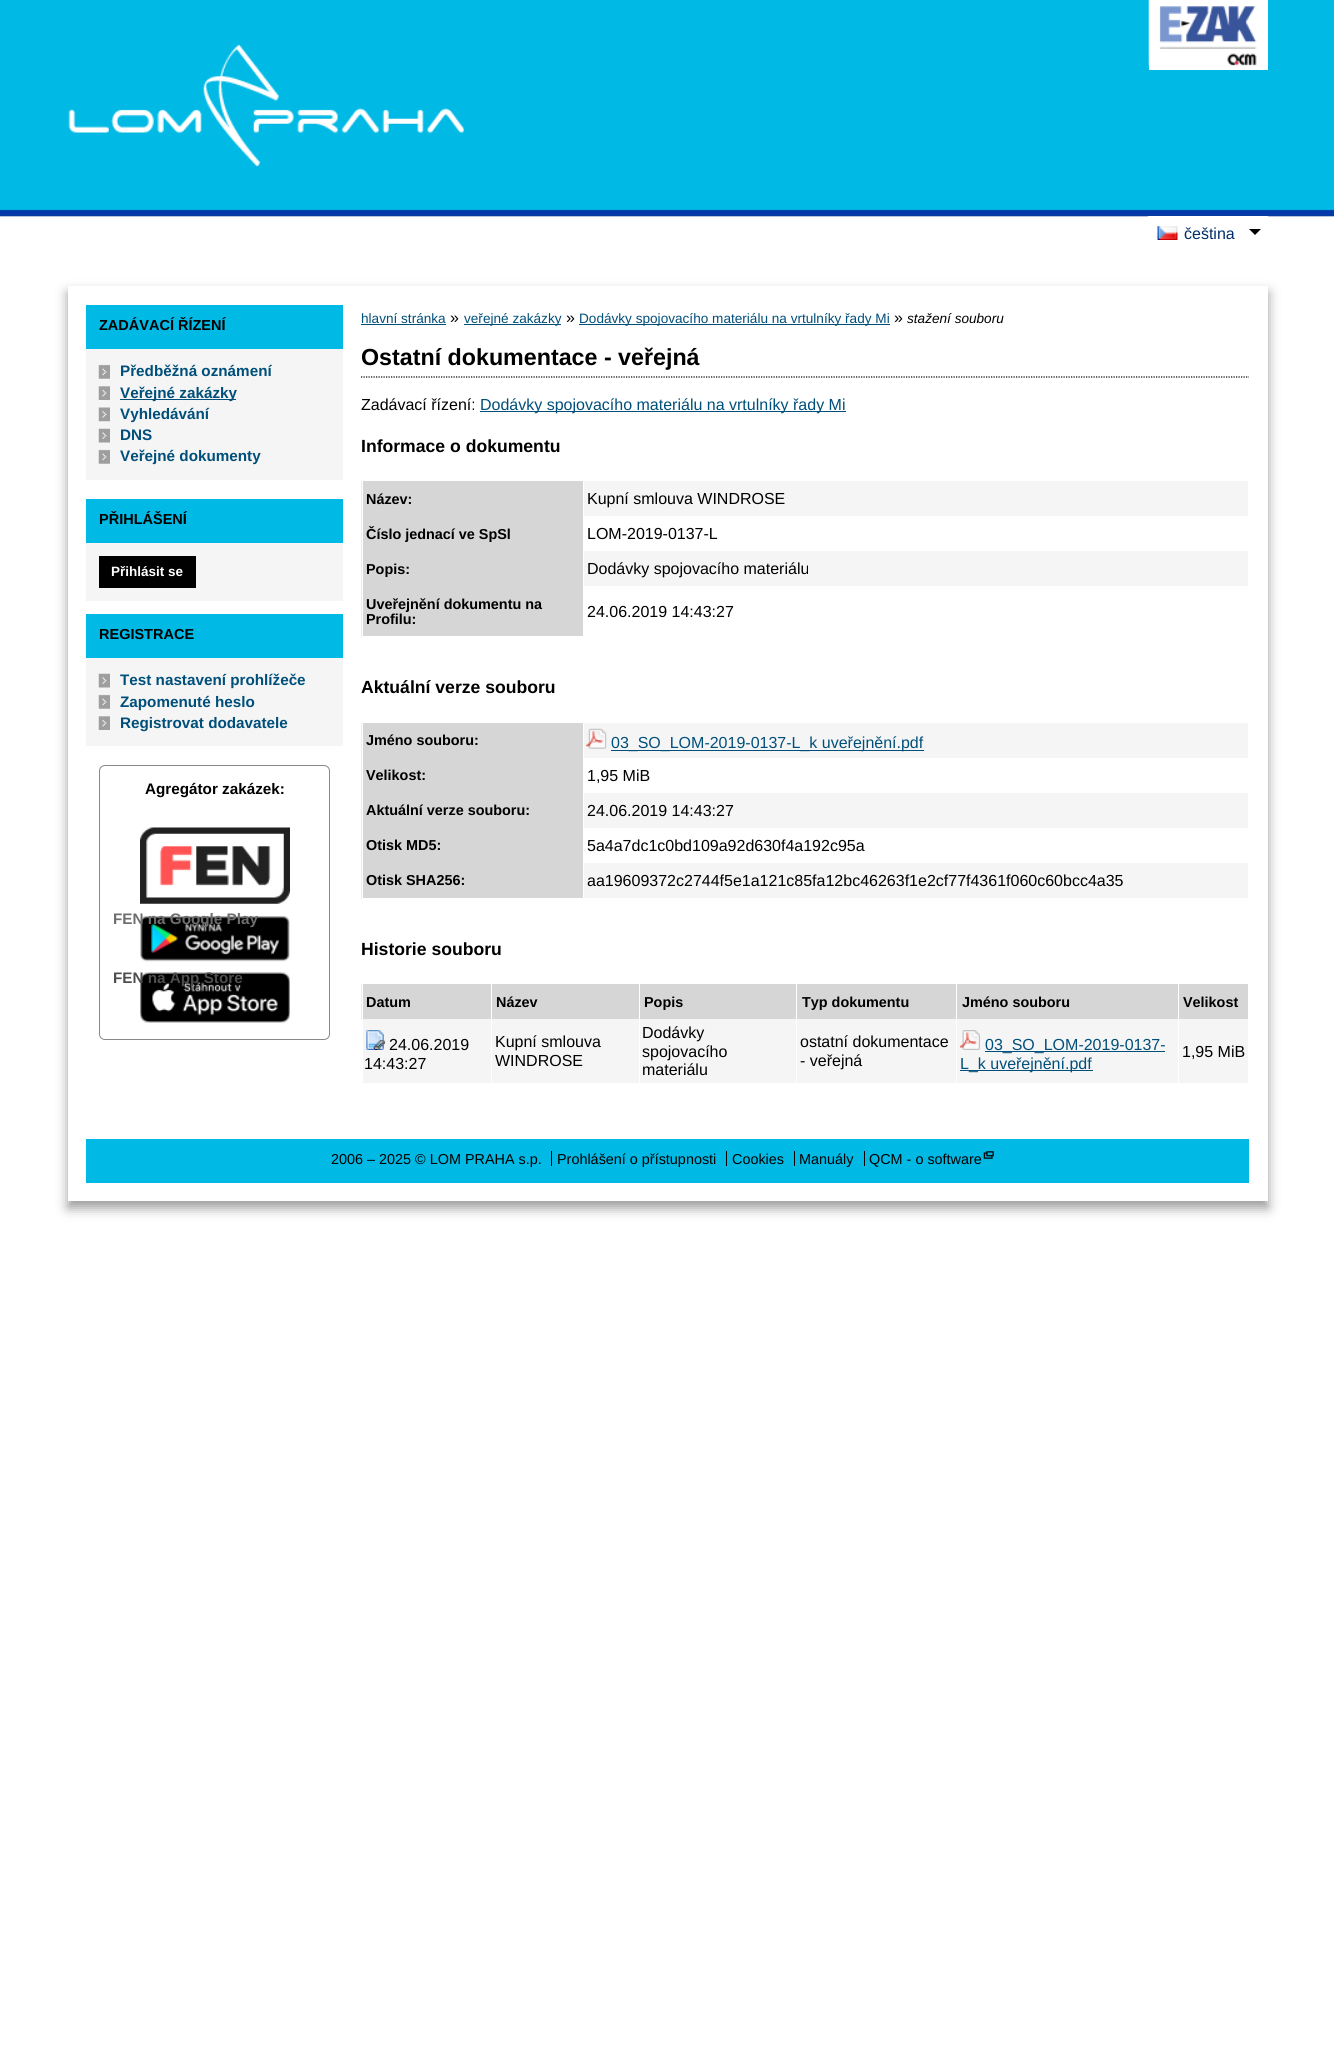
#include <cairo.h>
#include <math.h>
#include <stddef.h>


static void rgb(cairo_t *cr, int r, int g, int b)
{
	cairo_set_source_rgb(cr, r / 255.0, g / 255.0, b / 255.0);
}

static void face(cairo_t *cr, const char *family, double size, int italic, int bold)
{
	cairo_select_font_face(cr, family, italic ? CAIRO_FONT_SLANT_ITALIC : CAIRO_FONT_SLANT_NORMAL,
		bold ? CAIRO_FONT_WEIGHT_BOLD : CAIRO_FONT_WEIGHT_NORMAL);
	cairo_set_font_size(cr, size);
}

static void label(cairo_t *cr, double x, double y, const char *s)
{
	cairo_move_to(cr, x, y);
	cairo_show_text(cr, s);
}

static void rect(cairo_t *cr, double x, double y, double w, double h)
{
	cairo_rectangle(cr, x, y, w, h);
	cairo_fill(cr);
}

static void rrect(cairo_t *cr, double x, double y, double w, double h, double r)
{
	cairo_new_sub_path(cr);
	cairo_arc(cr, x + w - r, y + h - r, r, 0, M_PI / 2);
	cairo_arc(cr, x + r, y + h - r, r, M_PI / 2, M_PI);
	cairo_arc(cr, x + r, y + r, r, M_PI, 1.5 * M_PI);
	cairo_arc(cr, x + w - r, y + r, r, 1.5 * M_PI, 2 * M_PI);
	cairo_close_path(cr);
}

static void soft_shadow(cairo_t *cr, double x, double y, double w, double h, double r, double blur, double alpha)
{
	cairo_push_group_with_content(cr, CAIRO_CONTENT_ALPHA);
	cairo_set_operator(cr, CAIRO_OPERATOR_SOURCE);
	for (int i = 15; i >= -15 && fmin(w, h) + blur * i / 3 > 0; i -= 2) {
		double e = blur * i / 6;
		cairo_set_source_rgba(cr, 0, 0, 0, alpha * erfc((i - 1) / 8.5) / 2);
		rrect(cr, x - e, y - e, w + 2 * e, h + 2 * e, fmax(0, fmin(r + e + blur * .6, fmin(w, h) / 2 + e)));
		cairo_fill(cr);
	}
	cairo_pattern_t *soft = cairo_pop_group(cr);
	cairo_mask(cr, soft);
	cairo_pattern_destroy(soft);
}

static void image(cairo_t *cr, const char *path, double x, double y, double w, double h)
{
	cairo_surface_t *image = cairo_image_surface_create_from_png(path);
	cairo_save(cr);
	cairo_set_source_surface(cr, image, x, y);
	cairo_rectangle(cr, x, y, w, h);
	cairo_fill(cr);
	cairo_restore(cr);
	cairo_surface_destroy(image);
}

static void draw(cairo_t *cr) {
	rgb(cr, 255, 255, 255);
	cairo_paint(cr);
	image(cr, "image0.png", 0, 0, 1334, 217);
	rgb(cr, 255, 255, 255);
	rect(cr, 1149, 0, 119, 70);
	image(cr, "image1.png", 1148, 0, 109, 67);
	image(cr, "image2.png", 68, 44, 396, 123);
	rect(cr, 1148, 216, 120, 1);
	image(cr, "image3.png", 1157, 226, 21, 14);
	face(cr, "Liberation Sans", 16, 0, 0);
	rgb(cr, 1, 45, 107);
	label(cr, 1184, 239, "čeština");
	rgb(cr, 0, 0, 0);
	cairo_new_path(cr);
	cairo_move_to(cr, 1249, 229);
	cairo_line_to(cr, 1261, 229);
	cairo_line_to(cr, 1255, 235);
	cairo_close_path(cr);
	cairo_fill(cr);
	rgb(cr, 154, 154, 154);
	soft_shadow(cr, 68, 293, 1200, 915, 0, 6, 1);
	rgb(cr, 255, 255, 255);
	rect(cr, 68, 286, 1200, 915);
	rgb(cr, 0, 185, 229);
	rect(cr, 86, 305, 257, 44);
	face(cr, "Liberation Sans", 14.5, 0, 1);
	rgb(cr, 0, 0, 0);
	label(cr, 99, 330, "ZADÁVACÍ ŘÍZENÍ");
	rgb(cr, 245, 245, 245);
	rect(cr, 86, 349, 257, 131);
	image(cr, "image4.png", 98, 364, 12, 15);
	face(cr, "Liberation Sans", 15.25, 0, 1);
	rgb(cr, 0, 79, 122);
	label(cr, 120, 376, "Předběžná oznámení");
	image(cr, "image5.png", 98, 386, 12, 14);
	rect(cr, 120, 399, 116, 1);
	label(cr, 120, 398, "Veřejné zakázky");
	image(cr, "image6.png", 98, 407, 12, 15);
	label(cr, 120, 419, "Vyhledávání");
	image(cr, "image7.png", 98, 428, 12, 15);
	label(cr, 120, 440, "DNS");
	image(cr, "image4.png", 98, 449, 12, 15);
	label(cr, 120, 461, "Veřejné dokumenty");
	rgb(cr, 0, 185, 229);
	rect(cr, 86, 499, 257, 44);
	face(cr, "Liberation Sans", 14.5, 0, 1);
	rgb(cr, 0, 0, 0);
	label(cr, 99, 524, "PŘIHLÁŠENÍ");
	rgb(cr, 245, 245, 245);
	rect(cr, 86, 543, 257, 58);
	rgb(cr, 0, 0, 0);
	rect(cr, 99, 556, 97, 32);
	face(cr, "Liberation Sans", 13.5, 0, 1);
	rgb(cr, 255, 255, 255);
	label(cr, 111, 576, "Přihlásit se");
	rgb(cr, 0, 185, 229);
	rect(cr, 86, 614, 257, 44);
	face(cr, "Liberation Sans", 14.5, 0, 1);
	rgb(cr, 0, 0, 0);
	label(cr, 99, 639, "REGISTRACE");
	rgb(cr, 245, 245, 245);
	rect(cr, 86, 658, 257, 88);
	image(cr, "image7.png", 98, 673, 12, 15);
	face(cr, "Liberation Sans", 15.25, 0, 1);
	rgb(cr, 0, 79, 122);
	label(cr, 120, 685, "Test nastavení prohlížeče");
	image(cr, "image4.png", 98, 694, 12, 15);
	label(cr, 120, 707, "Zapomenuté heslo");
	image(cr, "image5.png", 98, 716, 12, 14);
	label(cr, 120, 728, "Registrovat dodavatele");
	rrect(cr, 99.5, 765.5, 230, 274, 5.5);
	rgb(cr, 136, 136, 136);
	cairo_set_line_width(cr, 1);
	cairo_stroke(cr);
	rgb(cr, 0, 0, 0);
	label(cr, 145, 794, "Agregátor zakázek:");
	image(cr, "image8.png", 140, 827, 150, 77);
	image(cr, "image9.png", 140, 916, 150, 46);
	rgb(cr, 110, 110, 110);
	label(cr, 113, 924, "FEN na Google Play");
	image(cr, "image10.png", 140, 972, 150, 51);
	rgb(cr, 77, 77, 77);
	label(cr, 113, 983, "FEN na App Store");
	face(cr, "Liberation Sans", 13.6, 0, 0);
	rgb(cr, 0, 79, 122);
	label(cr, 361, 323, "hlavní stránka");
	rect(cr, 361, 324, 85, 1);
	face(cr, "Liberation Sans", 16, 0, 0);
	rgb(cr, 0, 0, 0);
	label(cr, 450, 323, "»");
	rgb(cr, 0, 79, 122);
	rect(cr, 464, 324, 97, 1);
	face(cr, "Liberation Sans", 13.6, 0, 0);
	label(cr, 464, 323, "veřejné zakázky");
	face(cr, "Liberation Sans", 16, 0, 0);
	rgb(cr, 0, 0, 0);
	label(cr, 566, 323, "»");
	rgb(cr, 0, 79, 122);
	rect(cr, 579, 324, 311, 1);
	face(cr, "Liberation Sans", 13.6, 0, 0);
	label(cr, 579, 323, "Dodávky spojovacího materiálu na vrtulníky řady Mi");
	face(cr, "Liberation Sans", 16, 0, 0);
	rgb(cr, 0, 0, 0);
	label(cr, 894, 323, "»");
	face(cr, "Liberation Sans", 13.6, 1, 0);
	label(cr, 907, 323, "stažení souboru");
	cairo_new_path(cr);
	cairo_move_to(cr, 361, 377);
	cairo_line_to(cr, 1249, 377);
	cairo_set_line_width(cr, 1.2);
	cairo_set_dash(cr, (double[]){1.25, 1.25}, 2, 0);
	cairo_stroke(cr);
	face(cr, "Liberation Sans", 23.25, 0, 1);
	label(cr, 361, 365, "Ostatní dokumentace - veřejná");
	face(cr, "Liberation Sans", 16, 0, 0);
	label(cr, 361, 410, "Zadávací řízení:");
	rgb(cr, 0, 79, 122);
	rect(cr, 480, 411, 366, 1);
	label(cr, 480, 410, "Dodávky spojovacího materiálu na vrtulníky řady Mi");
	face(cr, "Liberation Sans", 17.6, 0, 1);
	rgb(cr, 0, 0, 0);
	label(cr, 361, 452, "Informace o dokumentu");
	rgb(cr, 245, 245, 245);
	rect(cr, 584, 481, 664, 35);
	rgb(cr, 214, 214, 214);
	rect(cr, 363, 481, 220, 155);
	face(cr, "Liberation Sans", 14.4, 0, 1);
	rgb(cr, 0, 0, 0);
	label(cr, 366, 504, "Název:");
	face(cr, "Liberation Sans", 16, 0, 0);
	label(cr, 587, 504, "Kupní smlouva WINDROSE");
	face(cr, "Liberation Sans", 14.4, 0, 1);
	label(cr, 366, 539, "Číslo jednací ve SpSl");
	face(cr, "Liberation Sans", 16, 0, 0);
	label(cr, 587, 539, "LOM-2019-0137-L");
	rgb(cr, 245, 245, 245);
	rect(cr, 584, 551, 664, 35);
	face(cr, "Liberation Sans", 14.4, 0, 1);
	rgb(cr, 0, 0, 0);
	label(cr, 366, 574, "Popis:");
	face(cr, "Liberation Sans", 16, 0, 0);
	label(cr, 587, 574, "Dodávky spojovacího materiálu");
	rgb(cr, 229, 239, 245);
	rect(cr, 361, 481, 1, 157);
	face(cr, "Liberation Sans", 14.4, 0, 1);
	rgb(cr, 0, 0, 0);
	label(cr, 366, 609, "Uveřejnění dokumentu na");
	label(cr, 366, 624, "Profilu:");
	face(cr, "Liberation Sans", 16, 0, 0);
	label(cr, 587, 617, "24.06.2019 14:43:27");
	face(cr, "Liberation Sans", 17.6, 0, 1);
	label(cr, 361, 693, "Aktuální verze souboru");
	rgb(cr, 245, 245, 245);
	rect(cr, 584, 723, 664, 35);
	rgb(cr, 214, 214, 214);
	rect(cr, 363, 723, 220, 175);
	face(cr, "Liberation Sans", 14.4, 0, 1);
	rgb(cr, 0, 0, 0);
	label(cr, 366, 745, "Jméno souboru:");
	image(cr, "image11.png", 586, 728, 21, 21);
	rgb(cr, 0, 79, 122);
	rect(cr, 611, 750, 313, 1);
	face(cr, "Liberation Sans", 16, 0, 0);
	label(cr, 611, 748, "03_SO_LOM-2019-0137-L_k uveřejnění.pdf");
	face(cr, "Liberation Sans", 14.4, 0, 1);
	rgb(cr, 0, 0, 0);
	label(cr, 366, 780, "Velikost:");
	face(cr, "Liberation Sans", 16, 0, 0);
	label(cr, 587, 781, "1,95 MiB");
	rgb(cr, 245, 245, 245);
	rect(cr, 584, 793, 664, 35);
	face(cr, "Liberation Sans", 14.4, 0, 1);
	rgb(cr, 0, 0, 0);
	label(cr, 366, 815, "Aktuální verze souboru:");
	face(cr, "Liberation Sans", 16, 0, 0);
	label(cr, 587, 816, "24.06.2019 14:43:27");
	face(cr, "Liberation Sans", 14.4, 0, 1);
	label(cr, 366, 850, "Otisk MD5:");
	face(cr, "Liberation Sans", 16, 0, 0);
	label(cr, 587, 851, "5a4a7dc1c0bd109a92d630f4a192c95a");
	rgb(cr, 245, 245, 245);
	rect(cr, 584, 863, 664, 35);
	rgb(cr, 229, 239, 245);
	rect(cr, 361, 723, 1, 176);
	face(cr, "Liberation Sans", 14.4, 0, 1);
	rgb(cr, 0, 0, 0);
	label(cr, 366, 885, "Otisk SHA256:");
	face(cr, "Liberation Sans", 16, 0, 0);
	label(cr, 587, 886, "aa19609372c2744f5e1a121c85fa12bc46263f1e2cf77f4361f060c60bcc4a35");
	face(cr, "Liberation Sans", 17.6, 0, 1);
	label(cr, 361, 955, "Historie souboru");
	rgb(cr, 214, 214, 214);
	rect(cr, 363, 984, 128, 35);
	rgb(cr, 229, 239, 245);
	rect(cr, 361, 984, 1, 36);
	face(cr, "Liberation Sans", 14.4, 0, 1);
	rgb(cr, 0, 0, 0);
	label(cr, 366, 1007, "Datum");
	rgb(cr, 214, 214, 214);
	rect(cr, 492, 984, 147, 35);
	rgb(cr, 0, 0, 0);
	label(cr, 496, 1007, "Název");
	rgb(cr, 214, 214, 214);
	rect(cr, 640, 984, 538, 35);
	rgb(cr, 0, 0, 0);
	label(cr, 644, 1007, "Popis");
	label(cr, 802, 1007, "Typ dokumentu");
	label(cr, 962, 1007, "Jméno souboru");
	rgb(cr, 214, 214, 214);
	rect(cr, 1179, 984, 69, 35);
	rgb(cr, 0, 0, 0);
	label(cr, 1183, 1007, "Velikost");
	rgb(cr, 245, 245, 245);
	rect(cr, 363, 1019, 885, 64);
	rgb(cr, 255, 255, 255);
	rect(cr, 491, 1019, 1, 65);
	image(cr, "image12.png", 366, 1030, 19, 20);
	face(cr, "Liberation Sans", 16, 0, 0);
	rgb(cr, 0, 0, 0);
	label(cr, 389, 1050, "24.06.2019");
	label(cr, 364, 1069, "14:43:27");
	rgb(cr, 255, 255, 255);
	rect(cr, 639, 1019, 1, 65);
	rgb(cr, 0, 0, 0);
	label(cr, 495, 1047, "Kupní smlouva");
	label(cr, 495, 1066, "WINDROSE");
	rgb(cr, 255, 255, 255);
	rect(cr, 796, 984, 1, 100);
	rgb(cr, 0, 0, 0);
	label(cr, 642, 1038, "Dodávky");
	label(cr, 642, 1057, "spojovacího");
	label(cr, 642, 1075, "materiálu");
	rgb(cr, 255, 255, 255);
	rect(cr, 956, 984, 1, 100);
	rgb(cr, 0, 0, 0);
	label(cr, 800, 1047, "ostatní dokumentace");
	label(cr, 800, 1066, "- veřejná");
	rgb(cr, 255, 255, 255);
	rect(cr, 1178, 1019, 1, 65);
	image(cr, "image13.png", 960, 1030, 20, 20);
	rgb(cr, 0, 79, 122);
	rect(cr, 985, 1051, 180, 1);
	label(cr, 985, 1050, "03_SO_LOM-2019-0137-");
	rect(cr, 960, 1070, 133, 1);
	label(cr, 960, 1069, "L_k uveřejnění.pdf");
	rgb(cr, 0, 0, 0);
	label(cr, 1182, 1057, "1,95 MiB");
	rgb(cr, 0, 185, 229);
	rect(cr, 86, 1139, 1163, 44);
	face(cr, "Liberation Sans", 14.4, 0, 0);
	rgb(cr, 0, 0, 0);
	label(cr, 331, 1164, "2006 – 2025 © LOM PRAHA s.p.");
	rect(cr, 551, 1151, 1, 15);
	label(cr, 557, 1164, "Prohlášení o přístupnosti");
	rect(cr, 726, 1151, 1, 15);
	label(cr, 732, 1164, "Cookies");
	rect(cr, 794, 1151, 1, 15);
	label(cr, 799, 1164, "Manuály");
	rect(cr, 864, 1151, 1, 15);
	label(cr, 869, 1164, "QCM - o software");
	image(cr, "image14.png", 983, 1151, 11, 8);
}

int main(void) {
	cairo_surface_t *surface = cairo_image_surface_create(CAIRO_FORMAT_RGB24, 1334, 2050);
	cairo_t *cr = cairo_create(surface);
	cairo_font_options_t *options = cairo_font_options_create();
	cairo_font_options_set_hint_metrics(options, CAIRO_HINT_METRICS_OFF);
	cairo_font_options_set_hint_style(options, CAIRO_HINT_STYLE_NONE);
	cairo_set_font_options(cr, options);
	cairo_set_miter_limit(cr, 4);
	draw(cr);
	cairo_surface_write_to_png(surface, "render.png");
	cairo_font_options_destroy(options);
	cairo_destroy(cr);
	cairo_surface_destroy(surface);
	return 0;
}
